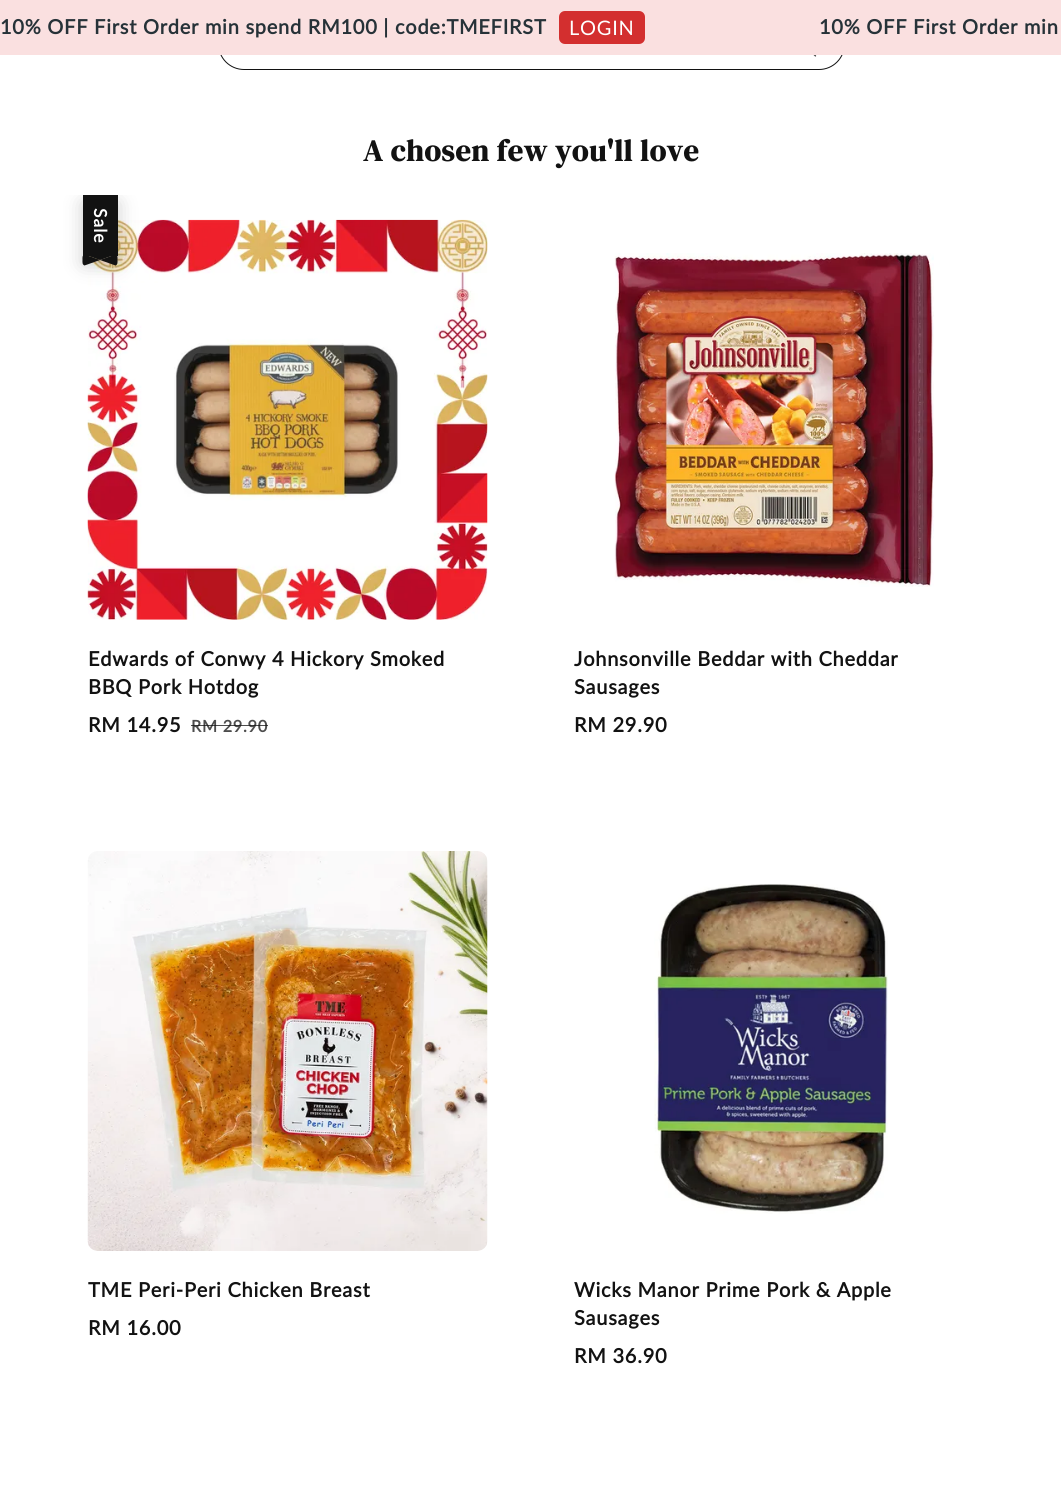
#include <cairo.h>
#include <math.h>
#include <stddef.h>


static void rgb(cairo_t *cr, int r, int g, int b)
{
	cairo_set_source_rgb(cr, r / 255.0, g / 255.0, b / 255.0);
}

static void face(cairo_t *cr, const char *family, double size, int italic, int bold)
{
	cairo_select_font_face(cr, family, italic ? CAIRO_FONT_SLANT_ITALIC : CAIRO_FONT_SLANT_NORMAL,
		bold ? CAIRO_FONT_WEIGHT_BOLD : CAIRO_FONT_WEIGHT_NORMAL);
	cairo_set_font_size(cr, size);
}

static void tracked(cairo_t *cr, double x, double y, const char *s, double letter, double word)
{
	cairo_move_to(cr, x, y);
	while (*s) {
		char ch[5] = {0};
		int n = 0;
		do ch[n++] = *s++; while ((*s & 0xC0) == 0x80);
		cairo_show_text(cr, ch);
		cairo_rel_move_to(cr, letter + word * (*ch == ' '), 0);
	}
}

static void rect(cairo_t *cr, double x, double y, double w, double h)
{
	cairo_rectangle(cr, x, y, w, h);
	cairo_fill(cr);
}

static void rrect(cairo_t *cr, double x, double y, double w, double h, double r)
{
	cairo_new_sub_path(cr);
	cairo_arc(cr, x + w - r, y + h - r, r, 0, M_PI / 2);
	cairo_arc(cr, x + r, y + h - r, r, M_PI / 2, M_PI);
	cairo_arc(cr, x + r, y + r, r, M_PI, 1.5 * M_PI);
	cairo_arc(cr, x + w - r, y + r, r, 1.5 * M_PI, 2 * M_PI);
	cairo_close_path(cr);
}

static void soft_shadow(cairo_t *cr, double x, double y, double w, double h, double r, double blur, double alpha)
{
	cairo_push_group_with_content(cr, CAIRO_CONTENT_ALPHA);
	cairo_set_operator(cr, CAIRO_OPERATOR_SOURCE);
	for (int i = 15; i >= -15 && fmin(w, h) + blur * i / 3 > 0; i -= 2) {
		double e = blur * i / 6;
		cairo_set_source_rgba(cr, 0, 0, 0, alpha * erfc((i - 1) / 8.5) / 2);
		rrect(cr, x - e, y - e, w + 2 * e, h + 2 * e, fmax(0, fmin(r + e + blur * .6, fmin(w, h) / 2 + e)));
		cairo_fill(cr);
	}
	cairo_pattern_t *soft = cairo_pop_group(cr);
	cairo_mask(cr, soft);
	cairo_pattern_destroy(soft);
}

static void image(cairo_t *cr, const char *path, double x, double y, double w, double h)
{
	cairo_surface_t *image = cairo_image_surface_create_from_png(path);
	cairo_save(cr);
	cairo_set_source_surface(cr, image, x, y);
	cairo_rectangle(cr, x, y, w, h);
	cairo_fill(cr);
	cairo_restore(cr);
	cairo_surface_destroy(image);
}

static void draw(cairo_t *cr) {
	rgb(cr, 255, 255, 255);
	cairo_paint(cr);
	rrect(cr, 218.5, 18.5, 626, 51, 25.5);
	rgb(cr, 18, 18, 18);
	cairo_set_line_width(cr, 1);
	cairo_stroke(cr);
	rgb(cr, 250, 224, 224);
	rect(cr, 0, 0, 1061, 55);
	face(cr, "Lato", 20, 0, 1);
	rgb(cr, 38, 50, 56);
	tracked(cr, 0, 34, "10% OFF First Order min spend RM100 | code:TMEFIRST", 0.75, 0);
	rgb(cr, 211, 47, 47);
	rrect(cr, 559, 11, 86, 33, 6);
	cairo_fill(cr);
	face(cr, "Lato", 20, 0, 0);
	rgb(cr, 255, 255, 255);
	tracked(cr, 569, 35, "LOGIN", 0.75, 0);
	face(cr, "Lato", 20, 0, 1);
	rgb(cr, 38, 50, 56);
	tracked(cr, 819, 34, "10% OFF First Order min", 0.75, 0);
	image(cr, "image0.png", 813, 55, 4, 2);
	face(cr, "DM Serif Display", 30, 0, 1);
	rgb(cr, 18, 18, 18);
	tracked(cr, 363, 161, "A chosen few you'll love", 0.75, 0);
	image(cr, "image1.png", 87, 219, 401, 401);
	cairo_save(cr);
	cairo_rectangle(cr, 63, 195, 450, 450);
	cairo_clip(cr);
	rgb(cr, 0, 0, 0);
	soft_shadow(cr, 83, 203, 35, 61, 0, 9.5, 0.2);
	cairo_restore(cr);
	rect(cr, 83, 195, 35, 61);
	face(cr, "Lato", 17.5, 0, 1);
	rgb(cr, 255, 255, 255);
	cairo_save(cr);
	cairo_translate(cr, 94, 208);
	cairo_rotate(cr, 90 * M_PI / 180);
	tracked(cr, 0, 0, "Sale", 1, 0);
	cairo_restore(cr);
	rgb(cr, 18, 18, 18);
	cairo_new_path(cr);
	cairo_move_to(cr, 86, 254);
	cairo_line_to(cr, 114, 254);
	cairo_line_to(cr, 115.5, 254.5);
	cairo_line_to(cr, 100, 260);
	cairo_line_to(cr, 84.5, 254.5);
	cairo_close_path(cr);
	cairo_fill(cr);
	cairo_new_path(cr);
	cairo_move_to(cr, 100, 260);
	cairo_line_to(cr, 115.5, 254.5);
	cairo_curve_to(cr, 118, 255.5, 117.5, 258, 117.5, 260);
	cairo_curve_to(cr, 117.5, 262, 118, 264.5, 115.5, 265.5);
	cairo_close_path(cr);
	cairo_move_to(cr, 100, 260);
	cairo_line_to(cr, 84.5, 265.5);
	cairo_curve_to(cr, 82, 264.5, 82.5, 262, 82.5, 260);
	cairo_curve_to(cr, 82.5, 258, 82, 255.5, 84.5, 254.5);
	cairo_close_path(cr);
	cairo_fill(cr);
	face(cr, "Lato", 20, 0, 1);
	tracked(cr, 88, 666, "Edwards of Conwy 4 Hickory Smoked", 0.75, 0);
	tracked(cr, 88, 694, "BBQ Pork Hotdog", 0.75, 0);
	tracked(cr, 88, 732, "RM 14.95", 0.75, 0);
	face(cr, "Lato", 16.25, 0, 1);
	rgb(cr, 77, 77, 77);
	tracked(cr, 191, 732, "RM 29.90", 0.75, 0);
	cairo_set_source_rgba(cr, 0.071, 0.071, 0.071, 0.75);
	rect(cr, 191, 725, 77, 1);
	image(cr, "image2.png", 614, 253, 320, 334);
	face(cr, "Lato", 20, 0, 1);
	rgb(cr, 18, 18, 18);
	tracked(cr, 574, 666, "Johnsonville Beddar with Cheddar", 0.75, 0);
	tracked(cr, 574, 694, "Sausages", 0.75, 0);
	tracked(cr, 574, 732, "RM 29.90", 0.75, 0);
	image(cr, "image3.png", 87, 851, 401, 400);
	tracked(cr, 88, 1297, "TME Peri-Peri Chicken Breast", 0.75, 0);
	tracked(cr, 88, 1335, "RM 16.00", 0.75, 0);
	image(cr, "image4.png", 654, 884, 234, 330);
	tracked(cr, 574, 1297, "Wicks Manor Prime Pork & Apple", 0.75, 0);
	tracked(cr, 574, 1325, "Sausages", 0.75, 0);
	tracked(cr, 574, 1363, "RM 36.90", 0.75, 0);
}

int main(void) {
	cairo_surface_t *surface = cairo_image_surface_create(CAIRO_FORMAT_RGB24, 1061, 1503);
	cairo_t *cr = cairo_create(surface);
	cairo_font_options_t *options = cairo_font_options_create();
	cairo_font_options_set_hint_metrics(options, CAIRO_HINT_METRICS_OFF);
	cairo_font_options_set_hint_style(options, CAIRO_HINT_STYLE_NONE);
	cairo_set_font_options(cr, options);
	cairo_set_miter_limit(cr, 4);
	draw(cr);
	cairo_surface_write_to_png(surface, "render.png");
	cairo_font_options_destroy(options);
	cairo_destroy(cr);
	cairo_surface_destroy(surface);
	return 0;
}
